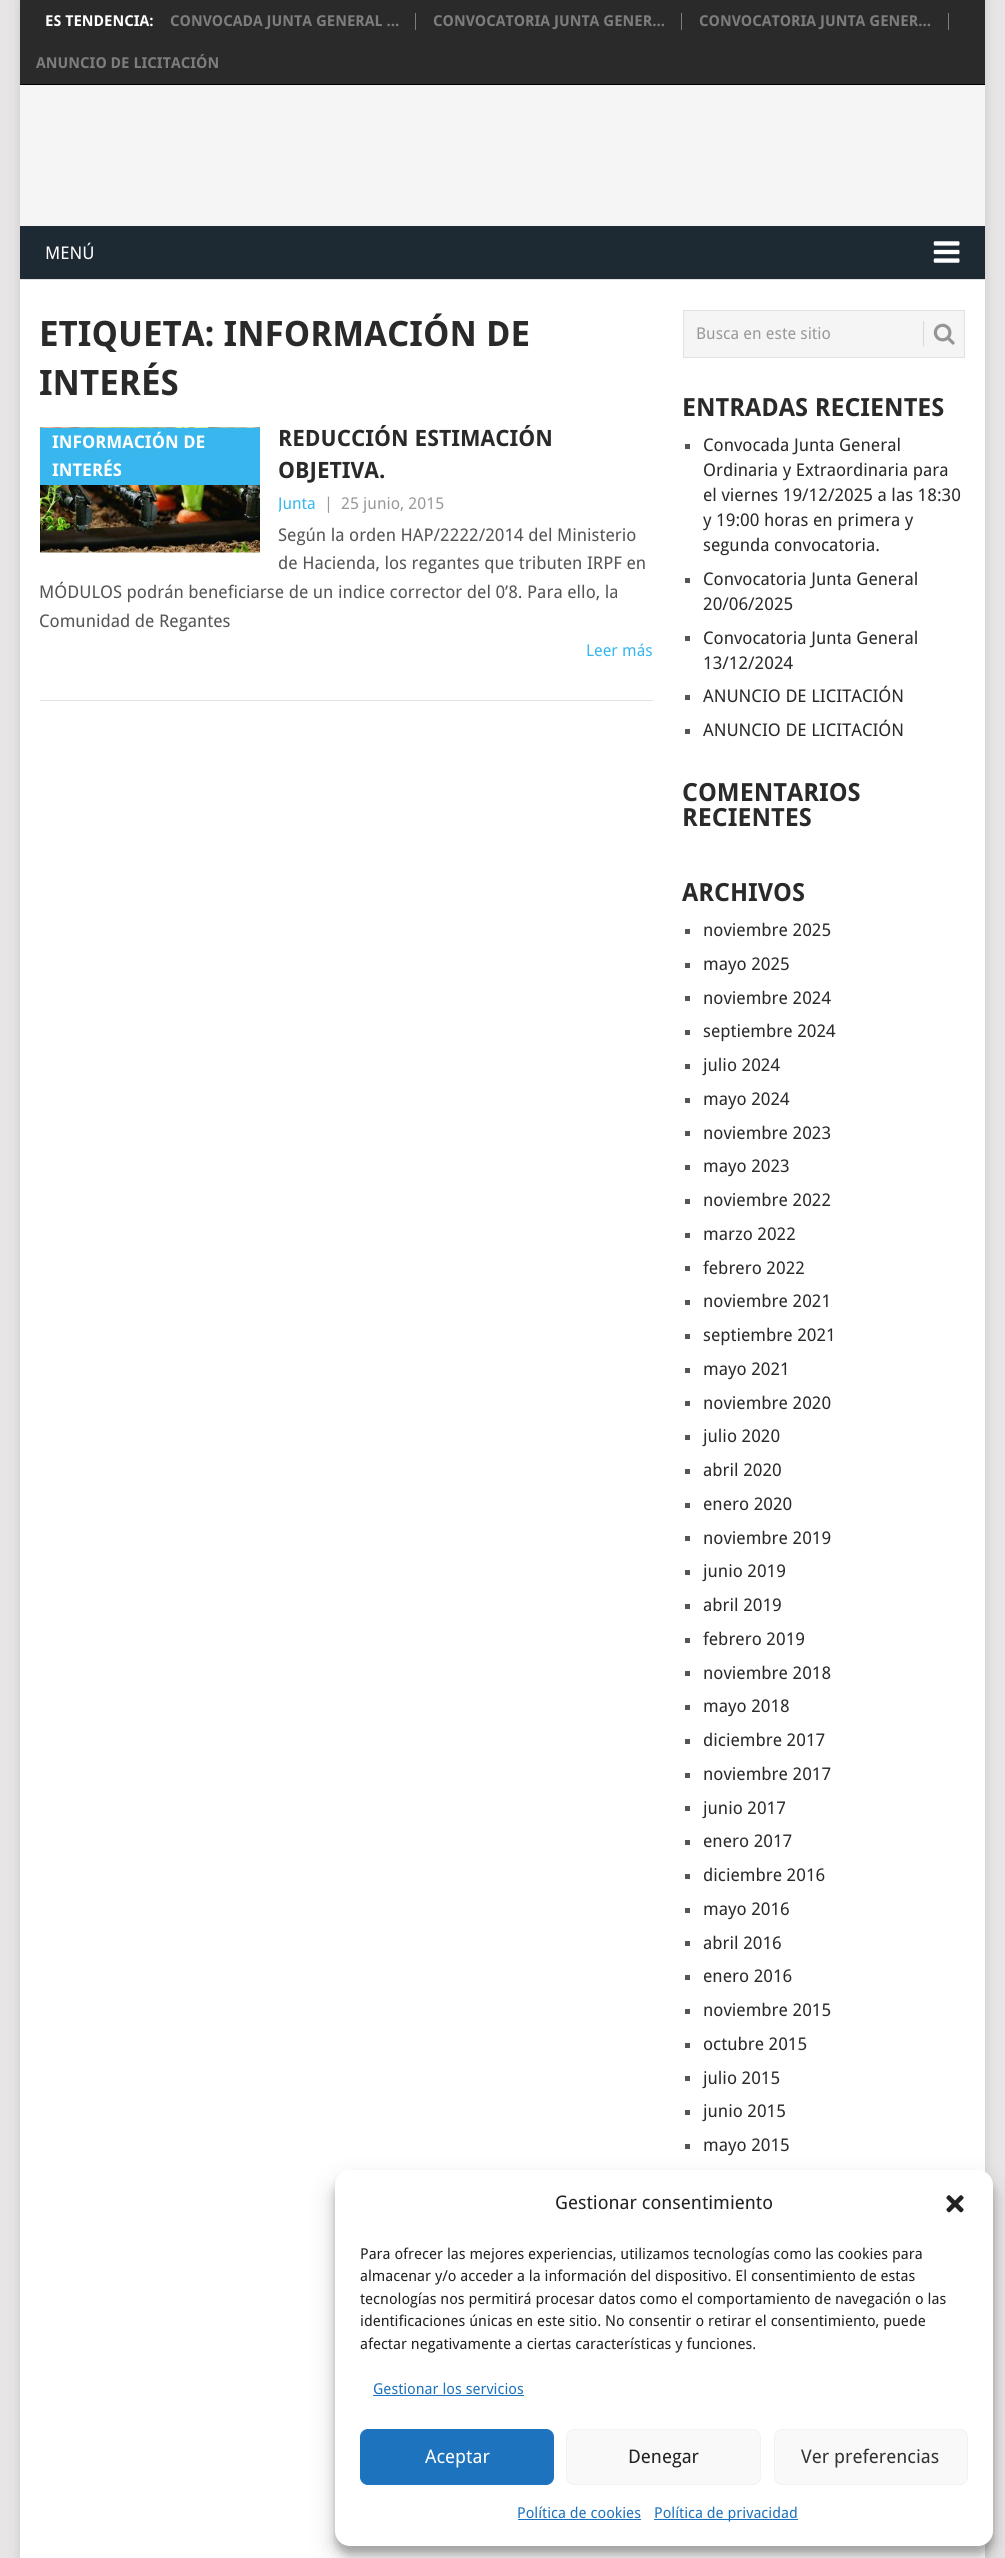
#include <cairo.h>
#include <math.h>
#include <stddef.h>


static void rgb(cairo_t *cr, int r, int g, int b)
{
	cairo_set_source_rgb(cr, r / 255.0, g / 255.0, b / 255.0);
}

static void face(cairo_t *cr, const char *family, double size, int italic, int bold)
{
	cairo_select_font_face(cr, family, italic ? CAIRO_FONT_SLANT_ITALIC : CAIRO_FONT_SLANT_NORMAL,
		bold ? CAIRO_FONT_WEIGHT_BOLD : CAIRO_FONT_WEIGHT_NORMAL);
	cairo_set_font_size(cr, size);
}

static void label(cairo_t *cr, double x, double y, const char *s)
{
	cairo_move_to(cr, x, y);
	cairo_show_text(cr, s);
}

static void rect(cairo_t *cr, double x, double y, double w, double h)
{
	cairo_rectangle(cr, x, y, w, h);
	cairo_fill(cr);
}

static void rrect(cairo_t *cr, double x, double y, double w, double h, double r)
{
	cairo_new_sub_path(cr);
	cairo_arc(cr, x + w - r, y + h - r, r, 0, M_PI / 2);
	cairo_arc(cr, x + r, y + h - r, r, M_PI / 2, M_PI);
	cairo_arc(cr, x + r, y + r, r, M_PI, 1.5 * M_PI);
	cairo_arc(cr, x + w - r, y + r, r, 1.5 * M_PI, 2 * M_PI);
	cairo_close_path(cr);
}

static void soft_shadow(cairo_t *cr, double x, double y, double w, double h, double r, double blur, double alpha)
{
	cairo_push_group_with_content(cr, CAIRO_CONTENT_ALPHA);
	cairo_set_operator(cr, CAIRO_OPERATOR_SOURCE);
	for (int i = 15; i >= -15 && fmin(w, h) + blur * i / 3 > 0; i -= 2) {
		double e = blur * i / 6;
		cairo_set_source_rgba(cr, 0, 0, 0, alpha * erfc((i - 1) / 8.5) / 2);
		rrect(cr, x - e, y - e, w + 2 * e, h + 2 * e, fmax(0, fmin(r + e + blur * .6, fmin(w, h) / 2 + e)));
		cairo_fill(cr);
	}
	cairo_pattern_t *soft = cairo_pop_group(cr);
	cairo_mask(cr, soft);
	cairo_pattern_destroy(soft);
}

static void image(cairo_t *cr, const char *path, double x, double y, double w, double h)
{
	cairo_surface_t *image = cairo_image_surface_create_from_png(path);
	cairo_save(cr);
	cairo_set_source_surface(cr, image, x, y);
	cairo_rectangle(cr, x, y, w, h);
	cairo_fill(cr);
	cairo_restore(cr);
	cairo_surface_destroy(image);
}

static void draw(cairo_t *cr) {
	rgb(cr, 231, 229, 230);
	cairo_paint(cr);
	rgb(cr, 50, 50, 50);
	soft_shadow(cr, 20, 0, 965, 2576, 0, 6, 0.17);
	rgb(cr, 255, 255, 255);
	rect(cr, 20, 280, 965, 2278);
	rgb(cr, 42, 42, 42);
	rect(cr, 20, 0, 965, 84);
	rgb(cr, 0, 0, 0);
	rect(cr, 20, 84, 965, 1);
	face(cr, "Droid Sans", 15, 0, 1);
	rgb(cr, 255, 255, 255);
	label(cr, 45, 26, "ES TENDENCIA:");
	rgb(cr, 125, 125, 125);
	rect(cr, 415, 13, 1, 17);
	label(cr, 170, 26, "CONVOCADA JUNTA GENERAL ...");
	rect(cr, 681, 13, 1, 17);
	label(cr, 433, 26, "CONVOCATORIA JUNTA GENER...");
	rect(cr, 948, 13, 1, 17);
	label(cr, 699, 26, "CONVOCATORIA JUNTA GENER...");
	label(cr, 36, 68, "ANUNCIO DE LICITACIÓN");
	rgb(cr, 245, 245, 245);
	rect(cr, 20, 85, 965, 141);
	rgb(cr, 29, 41, 51);
	rect(cr, 20, 226, 965, 53);
	face(cr, "Droid Sans", 17.5, 0, 0);
	rgb(cr, 255, 255, 255);
	label(cr, 45, 259, "MENÚ");
	image(cr, "image0.png", 933, 241, 27, 22);
	rgb(cr, 226, 226, 226);
	rect(cr, 20, 279, 965, 1);
	face(cr, "Droid Sans", 35, 0, 1);
	rgb(cr, 42, 42, 42);
	label(cr, 39, 346, "ETIQUETA: INFORMACIÓN DE");
	label(cr, 39, 395, "INTERÉS");
	rgb(cr, 226, 226, 226);
	rect(cr, 40, 700, 613, 1);
	image(cr, "image1.png", 40, 427, 220, 126);
	rgb(cr, 56, 183, 238);
	rect(cr, 40, 428, 220, 57);
	face(cr, "Droid Sans", 17.5, 0, 1);
	rgb(cr, 255, 255, 255);
	label(cr, 52, 448, "INFORMACIÓN DE");
	label(cr, 52, 476, "INTERÉS");
	face(cr, "Droid Sans", 22.5, 0, 1);
	rgb(cr, 42, 42, 42);
	label(cr, 278, 446, "REDUCCIÓN ESTIMACIÓN");
	label(cr, 278, 478, "OBJETIVA.");
	cairo_save(cr);
	cairo_rectangle(cr, 279, 423, 374, 96);
	cairo_clip(cr);
	face(cr, "Droid Sans", 16.25, 0, 0);
	rgb(cr, 56, 183, 238);
	label(cr, 278, 509, "Junta");
	cairo_restore(cr);
	face(cr, "Droid Sans", 16.25, 0, 0);
	rgb(cr, 153, 153, 153);
	label(cr, 324, 509, "|");
	label(cr, 341, 509, "25 junio, 2015");
	face(cr, "Droid Sans", 17.5, 0, 0);
	rgb(cr, 85, 85, 85);
	label(cr, 278, 541, "Según la orden HAP/2222/2014 del Ministerio");
	label(cr, 278, 569, "de Hacienda, los regantes que tributen IRPF en");
	label(cr, 39, 598, "MÓDULOS podrán beneficiarse de un indice corrector del 0’8. Para ello, la");
	label(cr, 39, 627, "Comunidad de Regantes");
	face(cr, "Droid Sans", 16.25, 0, 0);
	rgb(cr, 56, 183, 238);
	label(cr, 586, 656, "Leer más");
	rgb(cr, 245, 245, 245);
	cairo_rectangle(cr, 683.5, 310.5, 281, 47);
	cairo_fill_preserve(cr);
	rgb(cr, 226, 226, 226);
	cairo_set_line_width(cr, 1);
	cairo_stroke(cr);
	rgb(cr, 153, 153, 153);
	label(cr, 696, 339, "Busca en este sitio");
	rgb(cr, 216, 216, 216);
	rect(cr, 923, 321, 1, 25);
	image(cr, "image2.png", 933, 323, 22, 22);
	face(cr, "Droid Sans", 25, 0, 1);
	rgb(cr, 42, 42, 42);
	label(cr, 682, 416, "ENTRADAS RECIENTES");
	rgb(cr, 85, 85, 85);
	rect(cr, 685, 444, 5, 5);
	face(cr, "Droid Sans", 17.5, 0, 0);
	rgb(cr, 42, 42, 42);
	label(cr, 703, 451, "Convocada Junta General");
	label(cr, 703, 476, "Ordinaria y Extraordinaria para");
	label(cr, 703, 501, "el viernes 19/12/2025 a las 18:30");
	label(cr, 703, 526, "y 19:00 horas en primera y");
	label(cr, 703, 551, "segunda convocatoria.");
	rgb(cr, 85, 85, 85);
	rect(cr, 685, 578, 5, 5);
	rgb(cr, 42, 42, 42);
	label(cr, 703, 585, "Convocatoria Junta General");
	label(cr, 703, 610, "20/06/2025");
	rgb(cr, 85, 85, 85);
	rect(cr, 685, 636, 5, 5);
	rgb(cr, 42, 42, 42);
	label(cr, 703, 644, "Convocatoria Junta General");
	label(cr, 703, 669, "13/12/2024");
	rgb(cr, 85, 85, 85);
	rect(cr, 685, 695, 5, 5);
	rgb(cr, 42, 42, 42);
	label(cr, 703, 702, "ANUNCIO DE LICITACIÓN");
	rgb(cr, 85, 85, 85);
	rect(cr, 685, 729, 5, 5);
	rgb(cr, 42, 42, 42);
	label(cr, 703, 736, "ANUNCIO DE LICITACIÓN");
	face(cr, "Droid Sans", 25, 0, 1);
	label(cr, 682, 801, "COMENTARIOS");
	label(cr, 682, 826, "RECIENTES");
	label(cr, 682, 901, "ARCHIVOS");
	rgb(cr, 85, 85, 85);
	rect(cr, 685, 929, 5, 5);
	face(cr, "Droid Sans", 17.5, 0, 0);
	rgb(cr, 42, 42, 42);
	label(cr, 703, 936, "noviembre 2025");
	rgb(cr, 85, 85, 85);
	rect(cr, 685, 963, 5, 5);
	rgb(cr, 42, 42, 42);
	label(cr, 703, 970, "mayo 2025");
	rgb(cr, 85, 85, 85);
	rect(cr, 685, 996, 5, 5);
	rgb(cr, 42, 42, 42);
	label(cr, 703, 1004, "noviembre 2024");
	rgb(cr, 85, 85, 85);
	rect(cr, 685, 1030, 5, 5);
	rgb(cr, 42, 42, 42);
	label(cr, 703, 1037, "septiembre 2024");
	rgb(cr, 85, 85, 85);
	rect(cr, 685, 1064, 5, 5);
	rgb(cr, 42, 42, 42);
	label(cr, 703, 1071, "julio 2024");
	rgb(cr, 85, 85, 85);
	rect(cr, 685, 1098, 5, 5);
	rgb(cr, 42, 42, 42);
	label(cr, 703, 1105, "mayo 2024");
	rgb(cr, 85, 85, 85);
	rect(cr, 685, 1131, 5, 5);
	rgb(cr, 42, 42, 42);
	label(cr, 703, 1139, "noviembre 2023");
	rgb(cr, 85, 85, 85);
	rect(cr, 685, 1165, 5, 5);
	rgb(cr, 42, 42, 42);
	label(cr, 703, 1172, "mayo 2023");
	rgb(cr, 85, 85, 85);
	rect(cr, 685, 1199, 5, 5);
	rgb(cr, 42, 42, 42);
	label(cr, 703, 1206, "noviembre 2022");
	rgb(cr, 85, 85, 85);
	rect(cr, 685, 1233, 5, 5);
	rgb(cr, 42, 42, 42);
	label(cr, 703, 1240, "marzo 2022");
	rgb(cr, 85, 85, 85);
	rect(cr, 685, 1266, 5, 5);
	rgb(cr, 42, 42, 42);
	label(cr, 703, 1274, "febrero 2022");
	rgb(cr, 85, 85, 85);
	rect(cr, 685, 1300, 5, 5);
	rgb(cr, 42, 42, 42);
	label(cr, 703, 1307, "noviembre 2021");
	rgb(cr, 85, 85, 85);
	rect(cr, 685, 1334, 5, 5);
	rgb(cr, 42, 42, 42);
	label(cr, 703, 1341, "septiembre 2021");
	rgb(cr, 85, 85, 85);
	rect(cr, 685, 1368, 5, 5);
	rgb(cr, 42, 42, 42);
	label(cr, 703, 1375, "mayo 2021");
	rgb(cr, 85, 85, 85);
	rect(cr, 685, 1401, 5, 5);
	rgb(cr, 42, 42, 42);
	label(cr, 703, 1409, "noviembre 2020");
	rgb(cr, 85, 85, 85);
	rect(cr, 685, 1435, 5, 5);
	rgb(cr, 42, 42, 42);
	label(cr, 703, 1442, "julio 2020");
	rgb(cr, 85, 85, 85);
	rect(cr, 685, 1469, 5, 5);
	rgb(cr, 42, 42, 42);
	label(cr, 703, 1476, "abril 2020");
	rgb(cr, 85, 85, 85);
	rect(cr, 685, 1503, 5, 5);
	rgb(cr, 42, 42, 42);
	label(cr, 703, 1510, "enero 2020");
	rgb(cr, 85, 85, 85);
	rect(cr, 685, 1536, 5, 5);
	rgb(cr, 42, 42, 42);
	label(cr, 703, 1544, "noviembre 2019");
	rgb(cr, 85, 85, 85);
	rect(cr, 685, 1570, 5, 5);
	rgb(cr, 42, 42, 42);
	label(cr, 703, 1577, "junio 2019");
	rgb(cr, 85, 85, 85);
	rect(cr, 685, 1604, 5, 5);
	rgb(cr, 42, 42, 42);
	label(cr, 703, 1611, "abril 2019");
	rgb(cr, 85, 85, 85);
	rect(cr, 685, 1638, 5, 5);
	rgb(cr, 42, 42, 42);
	label(cr, 703, 1645, "febrero 2019");
	rgb(cr, 85, 85, 85);
	rect(cr, 685, 1671, 5, 5);
	rgb(cr, 42, 42, 42);
	label(cr, 703, 1679, "noviembre 2018");
	rgb(cr, 85, 85, 85);
	rect(cr, 685, 1705, 5, 5);
	rgb(cr, 42, 42, 42);
	label(cr, 703, 1712, "mayo 2018");
	rgb(cr, 85, 85, 85);
	rect(cr, 685, 1739, 5, 5);
	rgb(cr, 42, 42, 42);
	label(cr, 703, 1746, "diciembre 2017");
	rgb(cr, 85, 85, 85);
	rect(cr, 685, 1773, 5, 5);
	rgb(cr, 42, 42, 42);
	label(cr, 703, 1780, "noviembre 2017");
	rgb(cr, 85, 85, 85);
	rect(cr, 685, 1806, 5, 5);
	rgb(cr, 42, 42, 42);
	label(cr, 703, 1814, "junio 2017");
	rgb(cr, 85, 85, 85);
	rect(cr, 685, 1840, 5, 5);
	rgb(cr, 42, 42, 42);
	label(cr, 703, 1847, "enero 2017");
	rgb(cr, 85, 85, 85);
	rect(cr, 685, 1874, 5, 5);
	rgb(cr, 42, 42, 42);
	label(cr, 703, 1881, "diciembre 2016");
	rgb(cr, 85, 85, 85);
	rect(cr, 685, 1908, 5, 5);
	rgb(cr, 42, 42, 42);
	label(cr, 703, 1915, "mayo 2016");
	rgb(cr, 85, 85, 85);
	rect(cr, 685, 1941, 5, 5);
	rgb(cr, 42, 42, 42);
	label(cr, 703, 1949, "abril 2016");
	rgb(cr, 85, 85, 85);
	rect(cr, 685, 1975, 5, 5);
	rgb(cr, 42, 42, 42);
	label(cr, 703, 1982, "enero 2016");
	rgb(cr, 85, 85, 85);
	rect(cr, 685, 2009, 5, 5);
	rgb(cr, 42, 42, 42);
	label(cr, 703, 2016, "noviembre 2015");
	rgb(cr, 85, 85, 85);
	rect(cr, 685, 2043, 5, 5);
	rgb(cr, 42, 42, 42);
	label(cr, 703, 2050, "octubre 2015");
	rgb(cr, 85, 85, 85);
	rect(cr, 685, 2076, 5, 5);
	rgb(cr, 42, 42, 42);
	label(cr, 703, 2084, "julio 2015");
	rgb(cr, 85, 85, 85);
	rect(cr, 685, 2110, 5, 5);
	rgb(cr, 42, 42, 42);
	label(cr, 703, 2117, "junio 2015");
	rgb(cr, 85, 85, 85);
	rect(cr, 685, 2144, 5, 5);
	rgb(cr, 42, 42, 42);
	label(cr, 703, 2151, "mayo 2015");
	rgb(cr, 0, 0, 0);
	soft_shadow(cr, 335, 2178, 658, 376, 15, 4, 0.23);
	soft_shadow(cr, 335, 2183, 658, 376, 15, 12.5, 0.19);
	rgb(cr, 255, 255, 255);
	rrect(cr, 335, 2170, 658, 376, 15);
	cairo_fill(cr);
	face(cr, "Droid Sans", 18.75, 0, 0);
	rgb(cr, 34, 34, 34);
	label(cr, 555, 2209, "Gestionar consentimiento");
	image(cr, "image3.png", 946, 2195, 18, 18);
	face(cr, "Droid Sans", 15, 0, 0);
	label(cr, 360, 2259, "Para ofrecer las mejores experiencias, utilizamos tecnologías como las cookies para");
	label(cr, 360, 2281, "almacenar y/o acceder a la información del dispositivo. El consentimiento de estas");
	label(cr, 360, 2304, "tecnologías nos permitirá procesar datos como el comportamiento de navegación o las");
	label(cr, 360, 2326, "identificaciones únicas en este sitio. No consentir o retirar el consentimiento, puede");
	label(cr, 360, 2349, "afectar negativamente a ciertas características y funciones.");
	rgb(cr, 30, 115, 190);
	label(cr, 373, 2394, "Gestionar los servicios");
	rect(cr, 373, 2395, 151, 1);
	rrect(cr, 360.5, 2429.5, 193, 55, 7.5);
	cairo_fill_preserve(cr);
	cairo_stroke(cr);
	face(cr, "Droid Sans", 18.75, 0, 0);
	rgb(cr, 255, 255, 255);
	label(cr, 425, 2463, "Aceptar");
	rgb(cr, 249, 249, 249);
	rrect(cr, 566.5, 2429.5, 194, 55, 7.5);
	cairo_fill_preserve(cr);
	rgb(cr, 242, 242, 242);
	cairo_stroke(cr);
	rgb(cr, 34, 34, 34);
	label(cr, 628, 2463, "Denegar");
	rgb(cr, 249, 249, 249);
	rrect(cr, 774.5, 2429.5, 193, 55, 7.5);
	cairo_fill_preserve(cr);
	rgb(cr, 242, 242, 242);
	cairo_stroke(cr);
	rgb(cr, 51, 51, 51);
	label(cr, 801, 2463, "Ver preferencias");
	face(cr, "Droid Sans", 15, 0, 0);
	rgb(cr, 30, 115, 190);
	label(cr, 517, 2518, "Política de cookies");
	rect(cr, 518, 2519, 123, 1);
	rect(cr, 654, 2519, 144, 1);
	label(cr, 654, 2518, "Política de privacidad");
}

int main(void) {
	cairo_surface_t *surface = cairo_image_surface_create(CAIRO_FORMAT_RGB24, 1005, 2558);
	cairo_t *cr = cairo_create(surface);
	cairo_font_options_t *options = cairo_font_options_create();
	cairo_font_options_set_hint_metrics(options, CAIRO_HINT_METRICS_OFF);
	cairo_font_options_set_hint_style(options, CAIRO_HINT_STYLE_NONE);
	cairo_set_font_options(cr, options);
	cairo_set_miter_limit(cr, 4);
	draw(cr);
	cairo_surface_write_to_png(surface, "render.png");
	cairo_font_options_destroy(options);
	cairo_destroy(cr);
	cairo_surface_destroy(surface);
	return 0;
}
